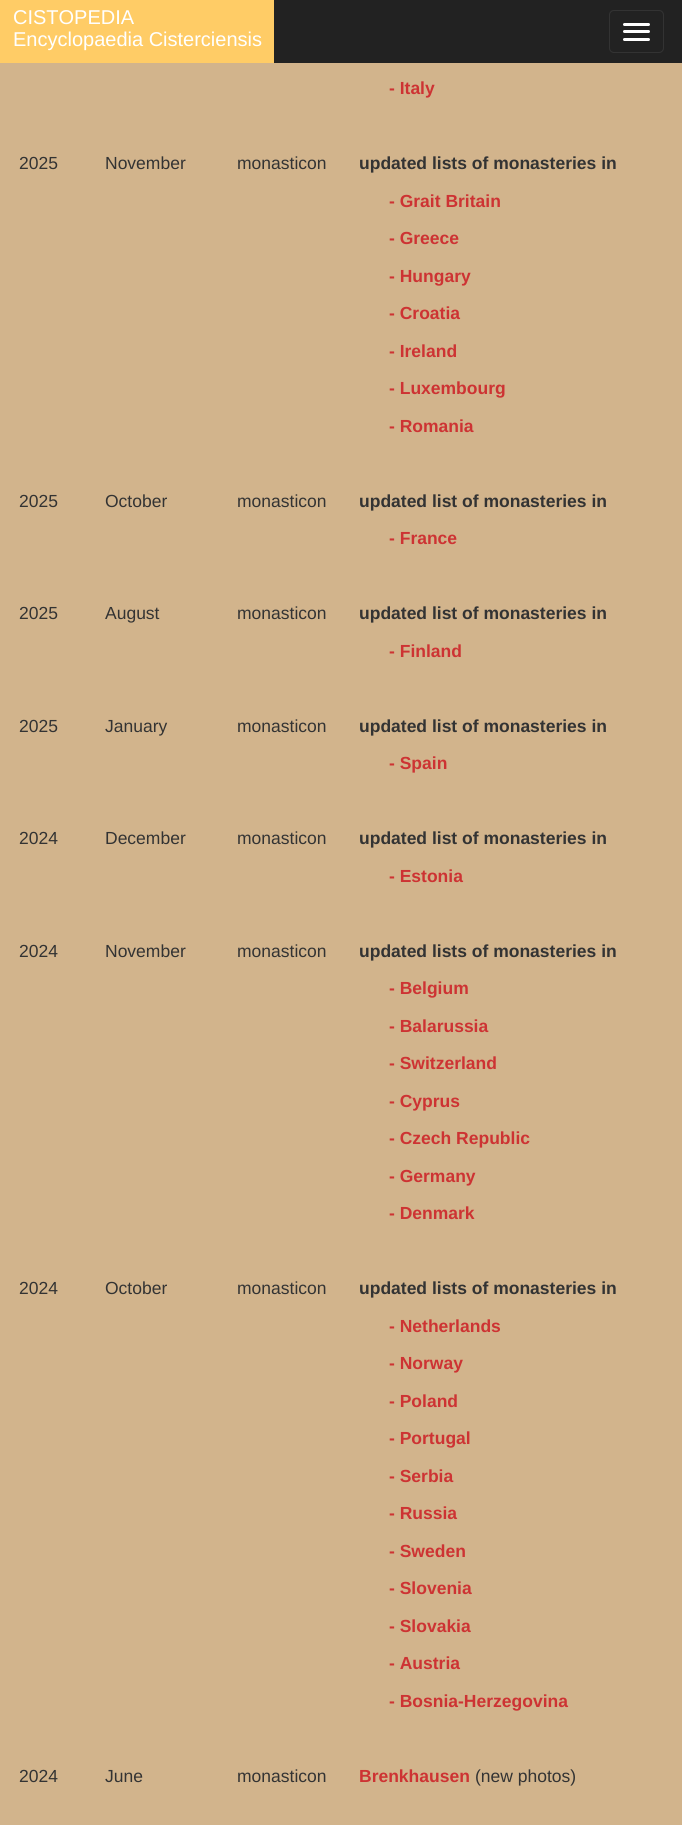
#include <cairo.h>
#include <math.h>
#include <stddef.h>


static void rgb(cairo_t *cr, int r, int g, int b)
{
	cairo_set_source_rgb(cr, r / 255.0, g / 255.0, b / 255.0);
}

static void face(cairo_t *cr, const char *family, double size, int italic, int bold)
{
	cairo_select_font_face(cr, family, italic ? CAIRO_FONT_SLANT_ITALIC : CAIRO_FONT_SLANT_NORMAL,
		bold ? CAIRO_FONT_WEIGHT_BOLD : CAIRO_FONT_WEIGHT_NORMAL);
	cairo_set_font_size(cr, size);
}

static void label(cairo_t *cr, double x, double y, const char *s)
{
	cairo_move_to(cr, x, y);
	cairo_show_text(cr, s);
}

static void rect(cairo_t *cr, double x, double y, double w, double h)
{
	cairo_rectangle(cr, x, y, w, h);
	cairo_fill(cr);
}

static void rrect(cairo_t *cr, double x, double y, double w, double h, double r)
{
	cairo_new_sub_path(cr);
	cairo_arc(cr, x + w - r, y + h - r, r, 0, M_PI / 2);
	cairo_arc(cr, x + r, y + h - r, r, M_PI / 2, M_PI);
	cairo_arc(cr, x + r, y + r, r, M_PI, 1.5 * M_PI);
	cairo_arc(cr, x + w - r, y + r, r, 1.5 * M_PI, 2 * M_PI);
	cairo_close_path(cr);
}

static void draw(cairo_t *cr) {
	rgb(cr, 210, 180, 140);
	cairo_paint(cr);
	rgb(cr, 34, 34, 34);
	rect(cr, 274, 0, 408, 63);
	rgb(cr, 255, 204, 102);
	rect(cr, 0, 0, 274, 63);
	face(cr, "Liberation Sans", 20, 0, 0);
	rgb(cr, 255, 255, 255);
	label(cr, 13, 24, "CISTOPEDIA");
	label(cr, 13, 46, "Encyclopaedia Cisterciensis");
	rrect(cr, 609.5, 10.5, 54, 42, 4.5);
	rgb(cr, 51, 51, 51);
	cairo_set_line_width(cr, 1);
	cairo_stroke(cr);
	rgb(cr, 255, 255, 255);
	rrect(cr, 623, 23, 27, 3, 1.5);
	cairo_fill(cr);
	rrect(cr, 623, 30, 27, 3, 1.5);
	cairo_fill(cr);
	rrect(cr, 623, 38, 27, 3, 1.5);
	cairo_fill(cr);
	face(cr, "Liberation Sans", 17.5, 0, 1);
	rgb(cr, 205, 51, 51);
	label(cr, 389, 94, "- Italy");
	face(cr, "Liberation Sans", 17.5, 0, 0);
	rgb(cr, 51, 51, 51);
	label(cr, 19, 169, "2025");
	label(cr, 105, 169, "November");
	label(cr, 237, 169, "monasticon");
	face(cr, "Liberation Sans", 17.5, 0, 1);
	label(cr, 359, 169, "updated lists of monasteries in");
	rgb(cr, 205, 51, 51);
	label(cr, 389, 207, "- Grait Britain");
	label(cr, 389, 244, "- Greece");
	label(cr, 389, 282, "- Hungary");
	label(cr, 389, 319, "- Croatia");
	label(cr, 389, 357, "- Ireland");
	label(cr, 389, 394, "- Luxembourg");
	label(cr, 389, 432, "- Romania");
	face(cr, "Liberation Sans", 17.5, 0, 0);
	rgb(cr, 51, 51, 51);
	label(cr, 19, 507, "2025");
	label(cr, 105, 507, "October");
	label(cr, 237, 507, "monasticon");
	face(cr, "Liberation Sans", 17.5, 0, 1);
	label(cr, 359, 507, "updated list of monasteries in");
	rgb(cr, 205, 51, 51);
	label(cr, 389, 544, "- France");
	face(cr, "Liberation Sans", 17.5, 0, 0);
	rgb(cr, 51, 51, 51);
	label(cr, 19, 619, "2025");
	label(cr, 105, 619, "August");
	label(cr, 237, 619, "monasticon");
	face(cr, "Liberation Sans", 17.5, 0, 1);
	label(cr, 359, 619, "updated list of monasteries in");
	rgb(cr, 205, 51, 51);
	label(cr, 389, 657, "- Finland");
	face(cr, "Liberation Sans", 17.5, 0, 0);
	rgb(cr, 51, 51, 51);
	label(cr, 19, 732, "2025");
	label(cr, 105, 732, "January");
	label(cr, 237, 732, "monasticon");
	face(cr, "Liberation Sans", 17.5, 0, 1);
	label(cr, 359, 732, "updated list of monasteries in");
	rgb(cr, 205, 51, 51);
	label(cr, 389, 769, "- Spain");
	face(cr, "Liberation Sans", 17.5, 0, 0);
	rgb(cr, 51, 51, 51);
	label(cr, 19, 844, "2024");
	label(cr, 105, 844, "December");
	label(cr, 237, 844, "monasticon");
	face(cr, "Liberation Sans", 17.5, 0, 1);
	label(cr, 359, 844, "updated list of monasteries in");
	rgb(cr, 205, 51, 51);
	label(cr, 389, 882, "- Estonia");
	face(cr, "Liberation Sans", 17.5, 0, 0);
	rgb(cr, 51, 51, 51);
	label(cr, 19, 957, "2024");
	label(cr, 105, 957, "November");
	label(cr, 237, 957, "monasticon");
	face(cr, "Liberation Sans", 17.5, 0, 1);
	label(cr, 359, 957, "updated lists of monasteries in");
	rgb(cr, 205, 51, 51);
	label(cr, 389, 994, "- Belgium");
	label(cr, 389, 1032, "- Balarussia");
	label(cr, 389, 1069, "- Switzerland");
	label(cr, 389, 1107, "- Cyprus");
	label(cr, 389, 1144, "- Czech Republic");
	label(cr, 389, 1182, "- Germany");
	label(cr, 389, 1219, "- Denmark");
	face(cr, "Liberation Sans", 17.5, 0, 0);
	rgb(cr, 51, 51, 51);
	label(cr, 19, 1294, "2024");
	label(cr, 105, 1294, "October");
	label(cr, 237, 1294, "monasticon");
	face(cr, "Liberation Sans", 17.5, 0, 1);
	label(cr, 359, 1294, "updated lists of monasteries in");
	rgb(cr, 205, 51, 51);
	label(cr, 389, 1332, "- Netherlands");
	label(cr, 389, 1369, "- Norway");
	label(cr, 389, 1407, "- Poland");
	label(cr, 389, 1444, "- Portugal");
	label(cr, 389, 1482, "- Serbia");
	label(cr, 389, 1519, "- Russia");
	label(cr, 389, 1557, "- Sweden");
	label(cr, 389, 1594, "- Slovenia");
	label(cr, 389, 1632, "- Slovakia");
	label(cr, 389, 1669, "- Austria");
	label(cr, 389, 1707, "- Bosnia-Herzegovina");
	face(cr, "Liberation Sans", 17.5, 0, 0);
	rgb(cr, 51, 51, 51);
	label(cr, 19, 1782, "2024");
	label(cr, 105, 1782, "June");
	label(cr, 237, 1782, "monasticon");
	face(cr, "Liberation Sans", 17.5, 0, 1);
	rgb(cr, 205, 51, 51);
	label(cr, 359, 1782, "Brenkhausen");
	face(cr, "Liberation Sans", 17.5, 0, 0);
	rgb(cr, 51, 51, 51);
	label(cr, 475, 1782, "(new photos)");
}

int main(void) {
	cairo_surface_t *surface = cairo_image_surface_create(CAIRO_FORMAT_RGB24, 682, 1825);
	cairo_t *cr = cairo_create(surface);
	cairo_font_options_t *options = cairo_font_options_create();
	cairo_font_options_set_hint_metrics(options, CAIRO_HINT_METRICS_OFF);
	cairo_font_options_set_hint_style(options, CAIRO_HINT_STYLE_NONE);
	cairo_set_font_options(cr, options);
	cairo_set_miter_limit(cr, 4);
	draw(cr);
	cairo_surface_write_to_png(surface, "render.png");
	cairo_font_options_destroy(options);
	cairo_destroy(cr);
	cairo_surface_destroy(surface);
	return 0;
}
